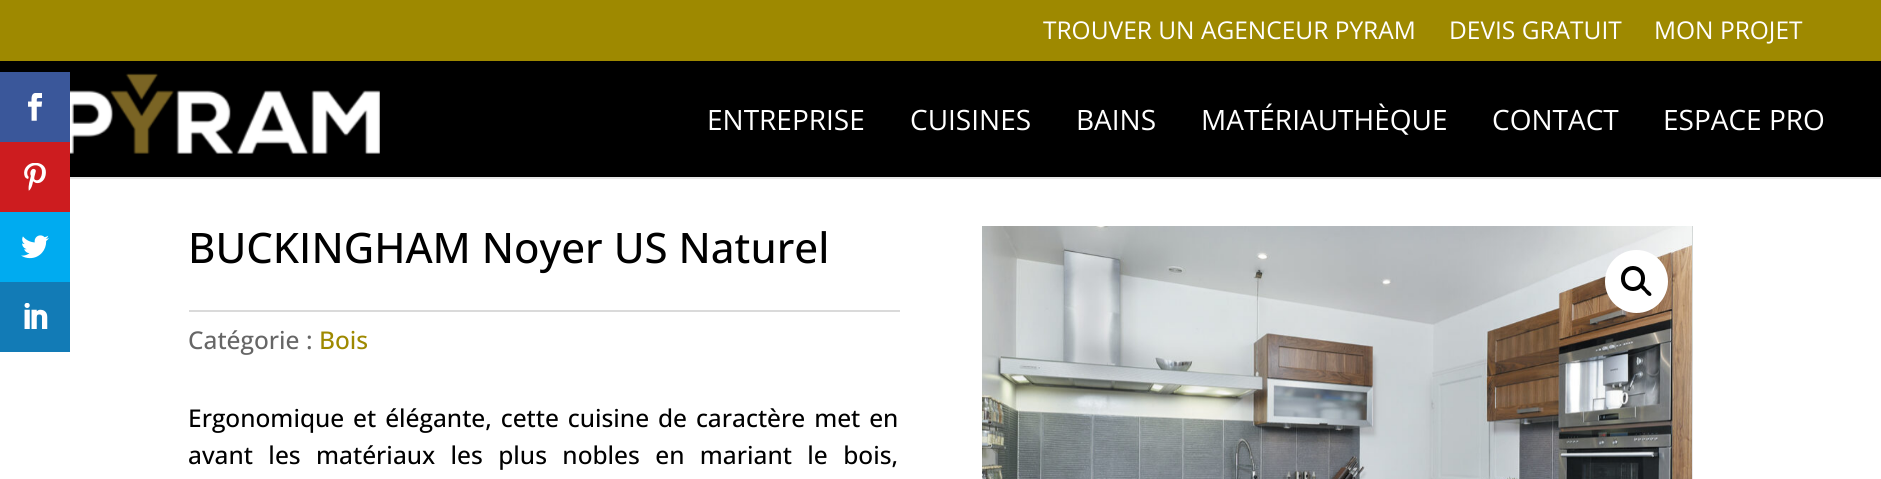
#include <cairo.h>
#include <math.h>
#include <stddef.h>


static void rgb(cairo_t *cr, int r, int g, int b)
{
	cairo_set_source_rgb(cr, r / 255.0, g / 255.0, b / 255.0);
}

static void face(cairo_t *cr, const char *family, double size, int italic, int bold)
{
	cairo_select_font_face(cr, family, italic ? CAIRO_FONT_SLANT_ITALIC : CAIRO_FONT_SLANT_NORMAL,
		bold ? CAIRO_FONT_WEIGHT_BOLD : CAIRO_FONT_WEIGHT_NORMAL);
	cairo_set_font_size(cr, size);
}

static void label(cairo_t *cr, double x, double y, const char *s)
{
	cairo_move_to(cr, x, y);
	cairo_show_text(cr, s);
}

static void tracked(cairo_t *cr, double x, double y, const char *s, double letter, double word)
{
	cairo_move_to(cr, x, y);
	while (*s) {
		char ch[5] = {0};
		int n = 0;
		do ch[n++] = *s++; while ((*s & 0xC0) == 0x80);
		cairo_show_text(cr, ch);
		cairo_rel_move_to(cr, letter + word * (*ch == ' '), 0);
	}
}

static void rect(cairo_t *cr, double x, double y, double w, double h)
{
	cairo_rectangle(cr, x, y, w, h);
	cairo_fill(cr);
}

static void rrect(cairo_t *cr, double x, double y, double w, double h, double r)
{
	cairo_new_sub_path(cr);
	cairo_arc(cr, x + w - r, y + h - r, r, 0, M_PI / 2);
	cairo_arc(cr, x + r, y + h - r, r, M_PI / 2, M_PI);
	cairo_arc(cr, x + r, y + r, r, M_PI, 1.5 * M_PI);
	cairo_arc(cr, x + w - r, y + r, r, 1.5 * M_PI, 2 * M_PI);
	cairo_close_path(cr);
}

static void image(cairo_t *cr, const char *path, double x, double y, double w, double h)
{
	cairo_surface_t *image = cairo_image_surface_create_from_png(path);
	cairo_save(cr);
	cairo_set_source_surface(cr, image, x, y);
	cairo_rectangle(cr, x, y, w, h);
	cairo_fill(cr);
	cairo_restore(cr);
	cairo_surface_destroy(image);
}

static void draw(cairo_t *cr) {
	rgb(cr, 255, 255, 255);
	cairo_paint(cr);
	rgb(cr, 0, 0, 0);
	rect(cr, 0, 61, 1881, 116);
	rgb(cr, 58, 87, 154);
	rect(cr, 0, 72, 70, 70);
	image(cr, "image0.png", 28, 93, 15, 28);
	rgb(cr, 205, 28, 31);
	rect(cr, 0, 142, 70, 70);
	image(cr, "image1.png", 24, 163, 22, 28);
	rgb(cr, 0, 171, 240);
	rect(cr, 0, 212, 70, 70);
	image(cr, "image2.png", 21, 235, 28, 24);
	rgb(cr, 18, 123, 182);
	rect(cr, 0, 282, 70, 70);
	image(cr, "image3.png", 24, 303, 24, 26);
	rgb(cr, 158, 137, 0);
	rect(cr, 0, 0, 1881, 61);
	face(cr, "Open Sans", 24.5, 0, 0);
	rgb(cr, 255, 255, 255);
	label(cr, 1043, 39, "TROUVER UN AGENCEUR PYRAM");
	label(cr, 1449, 39, "DEVIS GRATUIT");
	label(cr, 1654, 39, "MON PROJET");
	cairo_set_source_rgba(cr, 0, 0, 0, 0.1);
	rect(cr, 70, 177, 1811, 2);
	image(cr, "image4.png", 70, 73, 310, 81);
	face(cr, "Open Sans", 28, 0, 0);
	rgb(cr, 255, 255, 255);
	label(cr, 707, 130, "ENTREPRISE");
	label(cr, 910, 130, "CUISINES");
	label(cr, 1076, 130, "BAINS");
	label(cr, 1201, 130, "MATÉRIAUTHÈQUE");
	label(cr, 1492, 130, "CONTACT");
	label(cr, 1663, 130, "ESPACE PRO");
	face(cr, "Open Sans Medium", 42, 0, 0);
	rgb(cr, 0, 0, 0);
	label(cr, 188, 263, "BUCKINGHAM Noyer US Naturel");
	rgb(cr, 218, 218, 218);
	rect(cr, 189, 310, 711, 2);
	face(cr, "Open Sans Medium", 24.5, 0, 0);
	rgb(cr, 102, 102, 102);
	label(cr, 188, 349, "Catégorie :");
	rgb(cr, 158, 137, 0);
	label(cr, 319, 349, "Bois");
	rgb(cr, 0, 0, 0);
	tracked(cr, 188, 427, "Ergonomique et élégante, cette cuisine de caractère met en", 0, 2.5);
	tracked(cr, 188, 464, "avant les matériaux les plus nobles en mariant le bois,", 0, 9);
	image(cr, "image5.png", 982, 226, 710, 253);
	image(cr, "image6.png", 1692, 226, 1, 253);
	rgb(cr, 255, 255, 255);
	cairo_arc(cr, 1636.5, 281.5, 31.5, 0, 2 * M_PI);
	cairo_fill(cr);
	rrect(cr, 1623, 268, 20, 21, 10);
	rgb(cr, 0, 0, 0);
	cairo_set_line_width(cr, 4);
	cairo_stroke(cr);
	cairo_new_path(cr);
	cairo_move_to(cr, 1641, 285.5);
	cairo_curve_to(cr, 1643, 283.5, 1646, 288, 1647, 289.5);
	cairo_curve_to(cr, 1648, 290.5, 1653, 293.5, 1651, 295.5);
	cairo_curve_to(cr, 1649, 297.5, 1645.5, 293, 1644.5, 291.5);
	cairo_curve_to(cr, 1643.5, 290.5, 1639, 287.5, 1641, 285.5);
	cairo_close_path(cr);
	cairo_fill(cr);
}

int main(void) {
	cairo_surface_t *surface = cairo_image_surface_create(CAIRO_FORMAT_RGB24, 1881, 479);
	cairo_t *cr = cairo_create(surface);
	cairo_font_options_t *options = cairo_font_options_create();
	cairo_font_options_set_hint_metrics(options, CAIRO_HINT_METRICS_OFF);
	cairo_font_options_set_hint_style(options, CAIRO_HINT_STYLE_NONE);
	cairo_set_font_options(cr, options);
	cairo_set_miter_limit(cr, 4);
	draw(cr);
	cairo_surface_write_to_png(surface, "render.png");
	cairo_font_options_destroy(options);
	cairo_destroy(cr);
	cairo_surface_destroy(surface);
	return 0;
}
